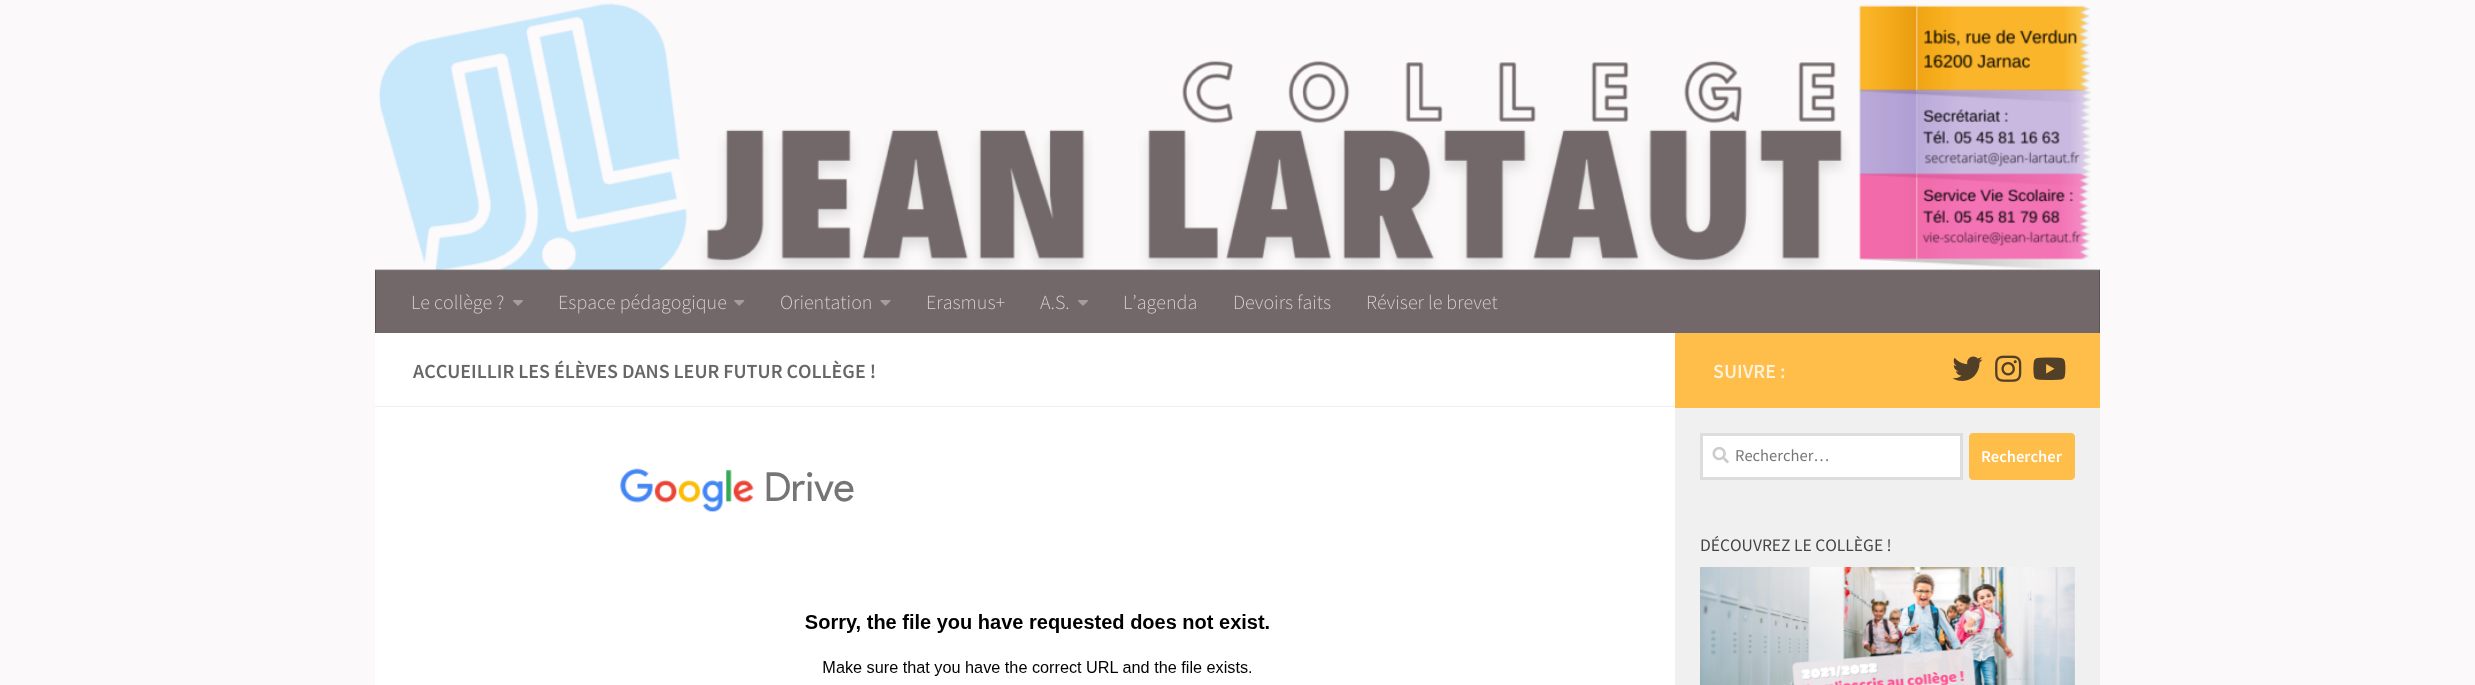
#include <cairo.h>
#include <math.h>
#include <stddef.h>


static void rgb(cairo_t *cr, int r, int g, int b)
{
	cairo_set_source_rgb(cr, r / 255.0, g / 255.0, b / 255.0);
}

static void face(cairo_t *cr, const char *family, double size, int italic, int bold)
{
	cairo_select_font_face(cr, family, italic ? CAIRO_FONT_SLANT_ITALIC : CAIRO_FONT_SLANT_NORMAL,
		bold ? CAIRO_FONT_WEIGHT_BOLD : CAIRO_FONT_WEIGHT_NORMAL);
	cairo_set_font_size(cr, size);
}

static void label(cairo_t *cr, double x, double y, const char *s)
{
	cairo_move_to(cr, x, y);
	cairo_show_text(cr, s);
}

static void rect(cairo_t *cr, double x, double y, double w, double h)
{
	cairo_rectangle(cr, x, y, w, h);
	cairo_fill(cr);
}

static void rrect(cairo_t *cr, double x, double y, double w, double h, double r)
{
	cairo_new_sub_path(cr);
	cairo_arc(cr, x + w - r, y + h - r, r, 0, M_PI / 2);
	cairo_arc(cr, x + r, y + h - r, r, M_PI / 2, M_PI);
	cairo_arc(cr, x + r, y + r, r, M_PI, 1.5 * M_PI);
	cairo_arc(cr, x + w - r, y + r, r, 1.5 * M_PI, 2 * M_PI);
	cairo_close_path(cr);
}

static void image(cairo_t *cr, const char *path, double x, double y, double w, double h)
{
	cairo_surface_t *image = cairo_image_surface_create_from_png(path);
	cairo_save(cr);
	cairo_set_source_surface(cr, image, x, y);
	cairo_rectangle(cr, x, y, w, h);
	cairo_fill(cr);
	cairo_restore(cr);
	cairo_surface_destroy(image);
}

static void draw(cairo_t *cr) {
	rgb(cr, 251, 249, 250);
	cairo_paint(cr);
	image(cr, "image0.png", 379, 3, 1712, 267);
	cairo_set_source_rgba(cr, 0, 0, 0, 0.2);
	rect(cr, 375, 269, 1725, 1);
	rgb(cr, 114, 104, 105);
	rect(cr, 376, 271, 1723, 62);
	rgb(cr, 121, 112, 113);
	rect(cr, 375, 270, 1725, 1);
	rgb(cr, 91, 83, 84);
	rect(cr, 2099, 270, 1, 63);
	rgb(cr, 99, 92, 93);
	rect(cr, 2099, 270, 1, 1);
	rgb(cr, 91, 83, 84);
	rect(cr, 375, 270, 1, 63);
	rgb(cr, 99, 92, 93);
	rect(cr, 375, 270, 1, 1);
	face(cr, "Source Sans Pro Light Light", 20, 0, 0);
	rgb(cr, 213, 210, 210);
	label(cr, 411, 309, "Le collège ?");
	image(cr, "image1.png", 513, 300, 10, 6);
	label(cr, 558, 309, "Espace pédagogique");
	image(cr, "image2.png", 734, 300, 11, 6);
	label(cr, 780, 309, "Orientation");
	image(cr, "image3.png", 880, 300, 11, 6);
	label(cr, 926, 309, "Erasmus+");
	label(cr, 1040, 309, "A.S.");
	image(cr, "image1.png", 1078, 300, 10, 6);
	label(cr, 1123, 309, "L’agenda");
	label(cr, 1233, 309, "Devoirs faits");
	label(cr, 1366, 309, "Réviser le brevet");
	rgb(cr, 255, 255, 255);
	rect(cr, 375, 333, 1300, 352);
	rgb(cr, 238, 238, 238);
	rect(cr, 375, 406, 1300, 1);
	face(cr, "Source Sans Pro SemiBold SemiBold", 20, 0, 0);
	rgb(cr, 102, 102, 102);
	label(cr, 413, 378, "ACCUEILLIR LES ÉLÈVES DANS LEUR FUTUR COLLÈGE !");
	image(cr, "image4.png", 619, 468, 650, 208);
	rgb(cr, 255, 189, 74);
	rect(cr, 1675, 333, 425, 75);
	rgb(cr, 255, 242, 219);
	label(cr, 1713, 378, "SUIVRE :");
	image(cr, "image5.png", 1952, 356, 31, 25);
	image(cr, "image6.png", 1995, 355, 27, 27);
	image(cr, "image7.png", 2033, 357, 33, 23);
	rgb(cr, 240, 240, 240);
	rect(cr, 1675, 408, 425, 277);
	rgb(cr, 255, 255, 255);
	cairo_rectangle(cr, 1701.5, 434.5, 260, 44);
	cairo_fill_preserve(cr);
	rgb(cr, 221, 221, 221);
	cairo_set_line_width(cr, 3);
	cairo_stroke(cr);
	image(cr, "image8.png", 1712, 447, 17, 17);
	face(cr, "Source Sans Pro", 16.5, 0, 0);
	rgb(cr, 117, 117, 117);
	label(cr, 1735, 461, "Rechercher…");
	rgb(cr, 255, 189, 74);
	rrect(cr, 1969, 433, 106, 47, 4);
	cairo_fill(cr);
	face(cr, "Source Sans Pro SemiBold SemiBold", 16.5, 0, 0);
	rgb(cr, 255, 255, 255);
	label(cr, 1981, 462, "Rechercher");
	face(cr, "Source Sans Pro", 17.5, 0, 0);
	rgb(cr, 68, 68, 68);
	label(cr, 1700, 551, "DÉCOUVREZ LE COLLÈGE !");
	image(cr, "image9.png", 1700, 567, 375, 118);
}

int main(void) {
	cairo_surface_t *surface = cairo_image_surface_create(CAIRO_FORMAT_RGB24, 2475, 685);
	cairo_t *cr = cairo_create(surface);
	cairo_font_options_t *options = cairo_font_options_create();
	cairo_font_options_set_hint_metrics(options, CAIRO_HINT_METRICS_OFF);
	cairo_font_options_set_hint_style(options, CAIRO_HINT_STYLE_NONE);
	cairo_set_font_options(cr, options);
	cairo_set_miter_limit(cr, 4);
	draw(cr);
	cairo_surface_write_to_png(surface, "render.png");
	cairo_font_options_destroy(options);
	cairo_destroy(cr);
	cairo_surface_destroy(surface);
	return 0;
}
